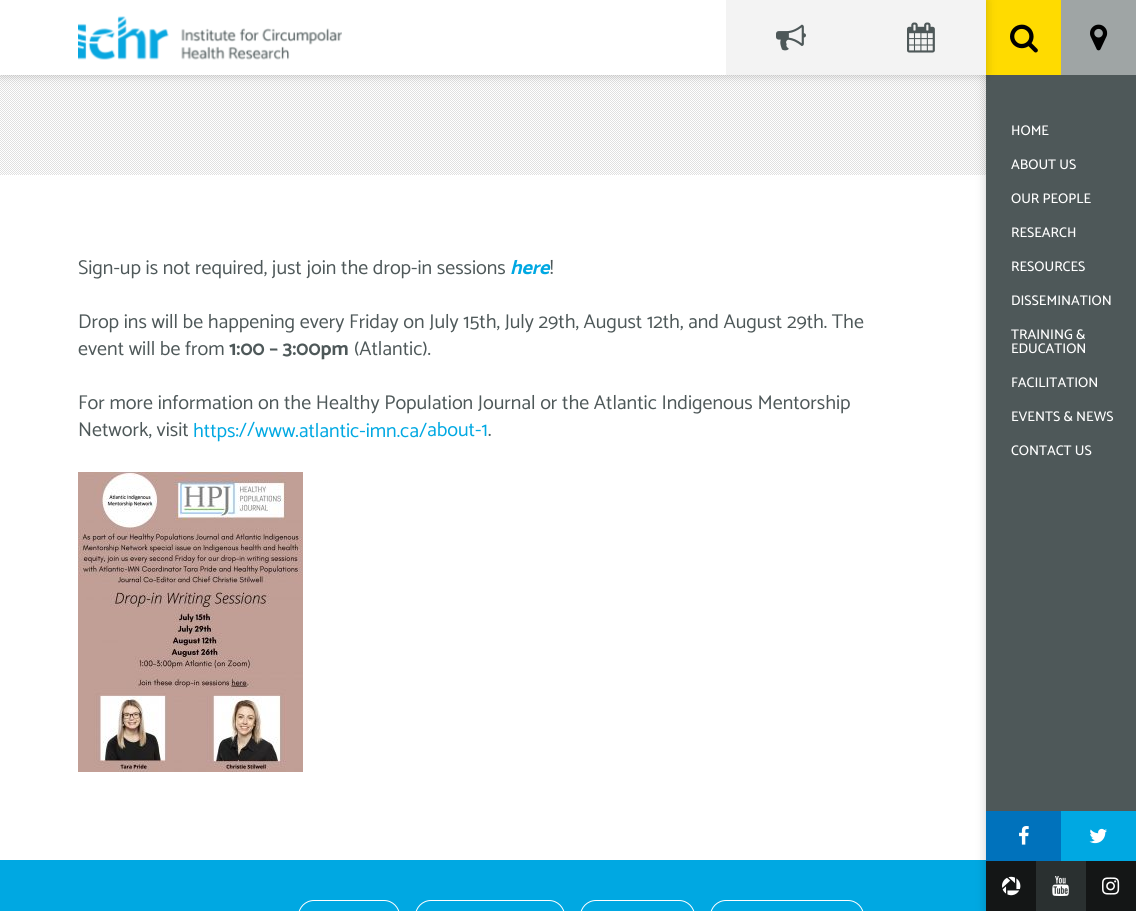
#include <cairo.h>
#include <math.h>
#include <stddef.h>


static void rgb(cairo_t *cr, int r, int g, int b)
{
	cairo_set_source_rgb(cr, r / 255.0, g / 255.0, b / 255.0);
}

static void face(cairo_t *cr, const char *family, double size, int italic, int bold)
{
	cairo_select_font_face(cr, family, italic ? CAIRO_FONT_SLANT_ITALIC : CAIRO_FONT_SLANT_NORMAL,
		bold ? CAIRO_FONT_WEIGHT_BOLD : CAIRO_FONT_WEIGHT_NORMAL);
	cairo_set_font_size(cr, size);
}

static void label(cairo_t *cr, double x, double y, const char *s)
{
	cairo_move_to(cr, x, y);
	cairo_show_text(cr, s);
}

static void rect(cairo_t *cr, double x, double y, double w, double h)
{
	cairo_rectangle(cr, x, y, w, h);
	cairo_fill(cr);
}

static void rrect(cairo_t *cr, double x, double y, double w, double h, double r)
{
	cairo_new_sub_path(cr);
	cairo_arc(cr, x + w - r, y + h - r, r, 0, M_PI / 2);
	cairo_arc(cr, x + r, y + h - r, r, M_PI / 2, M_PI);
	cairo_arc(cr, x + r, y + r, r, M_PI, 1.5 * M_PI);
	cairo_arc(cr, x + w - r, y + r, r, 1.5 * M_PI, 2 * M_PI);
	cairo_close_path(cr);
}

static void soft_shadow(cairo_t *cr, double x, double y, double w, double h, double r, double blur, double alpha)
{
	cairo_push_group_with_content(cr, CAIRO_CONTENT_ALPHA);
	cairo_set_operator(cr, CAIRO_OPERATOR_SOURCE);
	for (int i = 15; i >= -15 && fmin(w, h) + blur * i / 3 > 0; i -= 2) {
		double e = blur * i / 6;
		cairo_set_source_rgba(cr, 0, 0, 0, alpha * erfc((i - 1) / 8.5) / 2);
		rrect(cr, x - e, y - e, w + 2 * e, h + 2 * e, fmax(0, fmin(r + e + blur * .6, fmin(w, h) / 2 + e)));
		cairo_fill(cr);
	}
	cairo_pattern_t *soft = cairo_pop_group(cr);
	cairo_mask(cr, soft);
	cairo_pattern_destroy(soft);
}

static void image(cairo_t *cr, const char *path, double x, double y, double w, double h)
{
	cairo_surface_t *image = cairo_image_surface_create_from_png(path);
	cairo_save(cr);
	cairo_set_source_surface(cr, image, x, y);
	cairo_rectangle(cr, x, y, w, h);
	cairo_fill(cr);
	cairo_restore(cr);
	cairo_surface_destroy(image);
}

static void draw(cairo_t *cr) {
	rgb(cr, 255, 255, 255);
	cairo_paint(cr);
	image(cr, "image3.png", 0, 75, 986, 100);
	rgb(cr, 0, 168, 226);
	rect(cr, 0, 860, 986, 51);
	rgb(cr, 0, 0, 0);
	soft_shadow(cr, 986, 0, 150, 911, 0, 5, 0.2);
	rgb(cr, 78, 88, 89);
	rect(cr, 986, 75, 150, 736);
	rgb(cr, 255, 219, 0);
	rect(cr, 986, 0, 75, 75);
	rgb(cr, 0, 0, 0);
	soft_shadow(cr, 0, 0, 986, 75, 0, 5, 0.2);
	rgb(cr, 255, 255, 255);
	rect(cr, 0, 0, 726, 75);
	image(cr, "image0.png", 78, 16, 264, 44);
	rgb(cr, 243, 243, 243);
	rect(cr, 726, 0, 260, 75);
	image(cr, "image1.png", 776, 24, 30, 27);
	image(cr, "image2.png", 907, 22, 28, 31);
	image(cr, "image4.png", 1010, 24, 28, 29);
	rgb(cr, 159, 165, 165);
	rect(cr, 1061, 0, 75, 75);
	image(cr, "image5.png", 1090, 24, 18, 27);
	face(cr, "Catamaran Medium", 14, 0, 0);
	rgb(cr, 255, 255, 255);
	label(cr, 1011, 135, "HOME");
	label(cr, 1011, 169, "ABOUT US");
	label(cr, 1011, 203, "OUR PEOPLE");
	label(cr, 1011, 237, "RESEARCH");
	label(cr, 1011, 271, "RESOURCES");
	label(cr, 1011, 305, "DISSEMINATION");
	label(cr, 1011, 339, "TRAINING &");
	label(cr, 1011, 353, "EDUCATION");
	label(cr, 1011, 387, "FACILITATION");
	label(cr, 1011, 421, "EVENTS & NEWS");
	label(cr, 1011, 455, "CONTACT US");
	rgb(cr, 20, 22, 22);
	rect(cr, 986, 861, 150, 50);
	rgb(cr, 0, 114, 188);
	rect(cr, 986, 811, 75, 50);
	image(cr, "image6.png", 1019, 826, 10, 19);
	rgb(cr, 0, 168, 226);
	rect(cr, 1061, 811, 75, 50);
	image(cr, "image7.png", 1089, 828, 18, 16);
	image(cr, "image8.png", 1002, 876, 19, 20);
	rgb(cr, 42, 48, 48);
	rect(cr, 1036, 861, 50, 50);
	image(cr, "image9.png", 1052, 876, 17, 20);
	image(cr, "image10.png", 1102, 877, 18, 18);
	face(cr, "Catamaran", 20, 0, 0);
	rgb(cr, 78, 88, 89);
	label(cr, 78, 274, "Sign-up is not required, just join the drop-in sessions");
	face(cr, "Catamaran", 20, 1, 1);
	rgb(cr, 0, 168, 226);
	label(cr, 510, 274, "here");
	face(cr, "Catamaran", 20, 0, 0);
	rgb(cr, 78, 88, 89);
	label(cr, 550, 274, "!");
	label(cr, 78, 328, "Drop ins will be happening every Friday on July 15th, July 29th, August 12th, and August 29th. The");
	label(cr, 78, 355, "event will be from");
	face(cr, "Catamaran", 20, 0, 1);
	label(cr, 229, 355, "1:00 – 3:00pm");
	face(cr, "Catamaran", 20, 0, 0);
	label(cr, 354, 355, "(Atlantic).");
	label(cr, 78, 409, "For more information on the Healthy Population Journal or the Atlantic Indigenous Mentorship");
	label(cr, 78, 436, "Network, visit");
	rgb(cr, 0, 168, 226);
	label(cr, 193, 437, "https:/");
	label(cr, 247, 436, "/");
	label(cr, 255, 437, "www.atlantic-imn.ca/");
	label(cr, 427, 436, "about-1");
	rgb(cr, 78, 88, 89);
	label(cr, 488, 436, ".");
	image(cr, "image11.png", 78, 472, 225, 300);
	rrect(cr, 298.5, 900.5, 101, 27, 15.5);
	rgb(cr, 255, 255, 255);
	cairo_set_line_width(cr, 1);
	cairo_stroke(cr);
	rrect(cr, 415.5, 900.5, 149, 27, 15.5);
	cairo_stroke(cr);
	rrect(cr, 580.5, 900.5, 114, 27, 15.5);
	cairo_stroke(cr);
	rrect(cr, 710.5, 900.5, 153, 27, 15.5);
	cairo_stroke(cr);
}

int main(void) {
	cairo_surface_t *surface = cairo_image_surface_create(CAIRO_FORMAT_RGB24, 1136, 911);
	cairo_t *cr = cairo_create(surface);
	cairo_font_options_t *options = cairo_font_options_create();
	cairo_font_options_set_hint_metrics(options, CAIRO_HINT_METRICS_OFF);
	cairo_font_options_set_hint_style(options, CAIRO_HINT_STYLE_NONE);
	cairo_set_font_options(cr, options);
	cairo_set_miter_limit(cr, 4);
	draw(cr);
	cairo_surface_write_to_png(surface, "render.png");
	cairo_font_options_destroy(options);
	cairo_destroy(cr);
	cairo_surface_destroy(surface);
	return 0;
}
